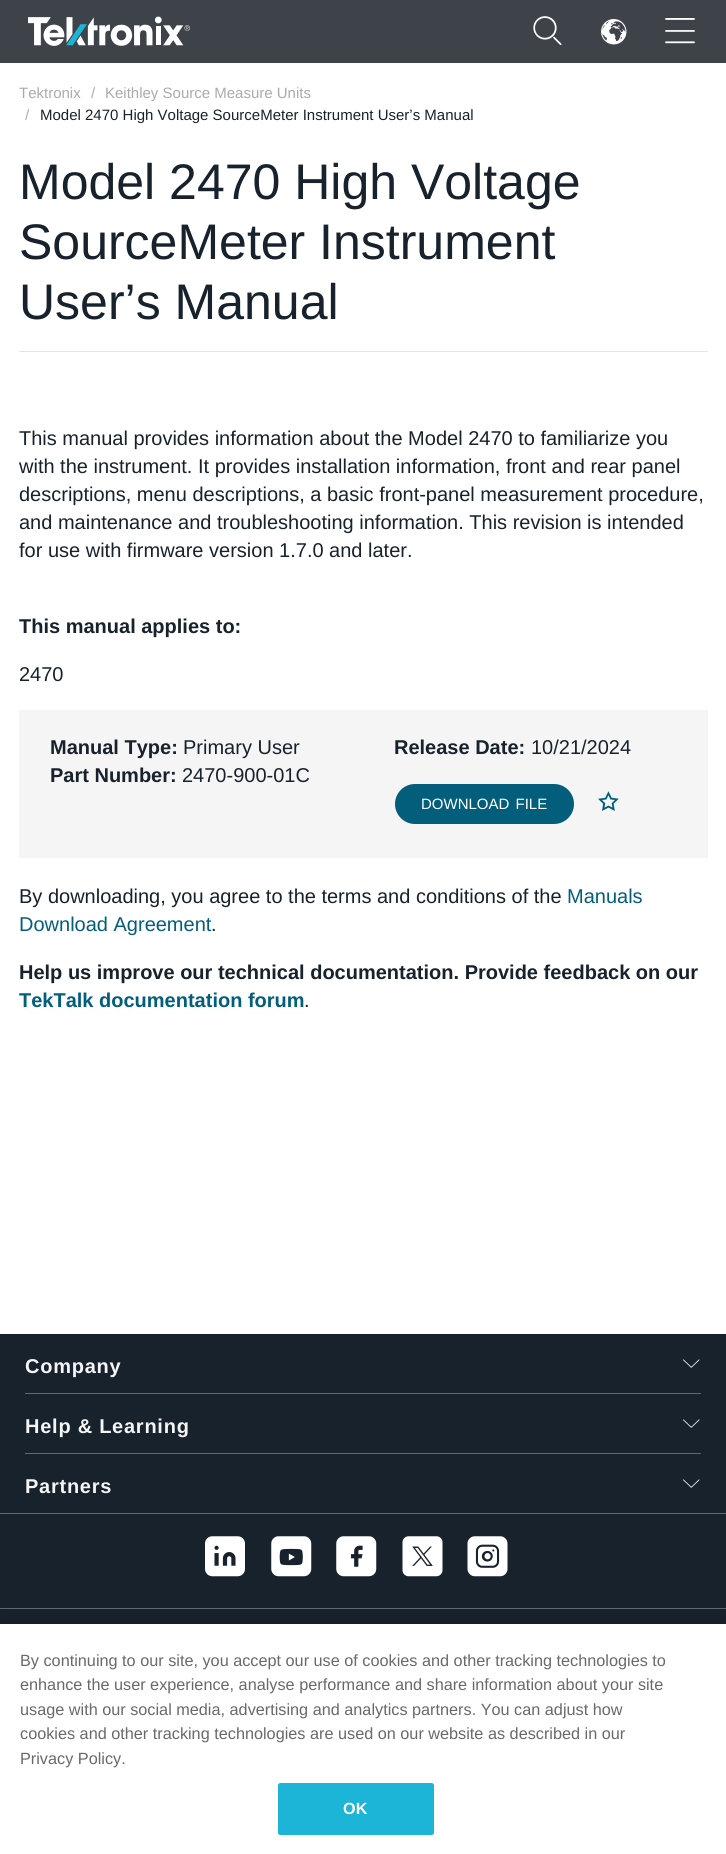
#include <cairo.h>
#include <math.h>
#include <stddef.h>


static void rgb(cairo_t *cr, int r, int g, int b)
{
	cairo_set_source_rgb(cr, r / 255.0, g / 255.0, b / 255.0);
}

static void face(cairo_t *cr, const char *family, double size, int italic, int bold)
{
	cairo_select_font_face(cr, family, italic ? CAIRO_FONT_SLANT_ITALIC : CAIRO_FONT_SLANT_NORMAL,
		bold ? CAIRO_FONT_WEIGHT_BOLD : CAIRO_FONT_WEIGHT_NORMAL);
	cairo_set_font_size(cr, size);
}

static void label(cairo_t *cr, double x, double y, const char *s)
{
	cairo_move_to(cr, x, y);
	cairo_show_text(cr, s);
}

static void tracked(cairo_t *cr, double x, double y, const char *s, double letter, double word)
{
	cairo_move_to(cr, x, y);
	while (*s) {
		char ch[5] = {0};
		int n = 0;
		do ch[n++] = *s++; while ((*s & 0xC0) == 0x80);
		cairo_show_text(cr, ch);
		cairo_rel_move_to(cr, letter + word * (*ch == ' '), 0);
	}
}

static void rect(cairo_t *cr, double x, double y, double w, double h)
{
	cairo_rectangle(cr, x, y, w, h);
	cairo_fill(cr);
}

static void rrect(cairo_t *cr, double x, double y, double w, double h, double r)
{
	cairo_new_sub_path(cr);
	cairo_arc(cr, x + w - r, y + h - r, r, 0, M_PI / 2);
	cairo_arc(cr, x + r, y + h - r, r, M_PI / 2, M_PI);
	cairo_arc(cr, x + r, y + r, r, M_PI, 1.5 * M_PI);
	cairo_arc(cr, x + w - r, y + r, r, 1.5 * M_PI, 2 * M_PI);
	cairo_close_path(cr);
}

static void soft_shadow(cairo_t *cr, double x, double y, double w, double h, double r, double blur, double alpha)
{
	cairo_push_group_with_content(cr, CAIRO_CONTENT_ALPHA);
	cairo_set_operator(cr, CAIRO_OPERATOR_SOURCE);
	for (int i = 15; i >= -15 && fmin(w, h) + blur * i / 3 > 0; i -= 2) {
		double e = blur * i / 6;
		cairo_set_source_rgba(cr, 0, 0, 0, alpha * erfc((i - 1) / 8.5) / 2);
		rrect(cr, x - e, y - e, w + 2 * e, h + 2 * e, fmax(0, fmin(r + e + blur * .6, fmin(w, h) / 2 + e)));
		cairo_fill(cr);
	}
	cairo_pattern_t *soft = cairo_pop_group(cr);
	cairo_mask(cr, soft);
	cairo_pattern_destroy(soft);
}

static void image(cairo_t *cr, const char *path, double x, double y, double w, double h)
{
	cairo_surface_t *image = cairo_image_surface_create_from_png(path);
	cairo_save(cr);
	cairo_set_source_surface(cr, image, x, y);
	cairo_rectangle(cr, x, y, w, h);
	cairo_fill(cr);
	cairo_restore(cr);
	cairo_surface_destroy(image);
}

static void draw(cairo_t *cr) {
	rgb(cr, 255, 255, 255);
	cairo_paint(cr);
	rgb(cr, 62, 67, 74);
	rect(cr, 0, 0, 726, 63);
	image(cr, "image0.png", 28, 16, 162, 30);
	image(cr, "image1.png", 533, 16, 29, 30);
	image(cr, "image2.png", 601, 19, 26, 26);
	image(cr, "image3.png", 665, 18, 30, 26);
	face(cr, "Liberation Sans", 15, 0, 0);
	rgb(cr, 171, 171, 171);
	label(cr, 19, 98, "Tektronix");
	label(cr, 91, 98, "/");
	label(cr, 105, 98, "Keithley Source Measure Units");
	label(cr, 25, 120, "/");
	rgb(cr, 23, 34, 44);
	label(cr, 40, 120, "Model 2470 High Voltage SourceMeter Instrument User’s Manual");
	rgb(cr, 229, 229, 229);
	rect(cr, 19, 351, 689, 1);
	face(cr, "Liberation Sans", 50, 0, 0);
	rgb(cr, 23, 34, 44);
	label(cr, 19, 199, "Model 2470 High Voltage");
	label(cr, 19, 259, "SourceMeter Instrument");
	label(cr, 19, 319, "User’s Manual");
	face(cr, "Liberation Sans", 20, 0, 0);
	label(cr, 19, 445, "This manual provides information about the Model 2470 to familiarize you");
	label(cr, 19, 473, "with the instrument. It provides installation information, front and rear panel");
	label(cr, 19, 501, "descriptions, menu descriptions, a basic front-panel measurement procedure,");
	label(cr, 19, 529, "and maintenance and troubleshooting information. This revision is intended");
	label(cr, 19, 557, "for use with firmware version 1.7.0 and later.");
	face(cr, "Liberation Sans", 20, 0, 1);
	label(cr, 19, 633, "This manual applies to:");
	face(cr, "Liberation Sans", 20, 0, 0);
	label(cr, 19, 681, "2470");
	rgb(cr, 245, 245, 245);
	rect(cr, 19, 710, 689, 148);
	face(cr, "Liberation Sans", 20, 0, 1);
	rgb(cr, 23, 34, 44);
	label(cr, 50, 754, "Manual Type:");
	face(cr, "Liberation Sans", 20, 0, 0);
	label(cr, 183, 754, "Primary User");
	face(cr, "Liberation Sans", 20, 0, 1);
	label(cr, 50, 782, "Part Number:");
	face(cr, "Liberation Sans", 20, 0, 0);
	label(cr, 182, 782, "2470-900-01C");
	face(cr, "Liberation Sans", 20, 0, 1);
	label(cr, 394, 754, "Release Date:");
	face(cr, "Liberation Sans", 20, 0, 0);
	label(cr, 531, 754, "10/21/2024");
	rgb(cr, 3, 94, 124);
	rrect(cr, 395, 784, 179, 40, 20);
	cairo_fill(cr);
	face(cr, "Liberation Sans", 15, 0, 0);
	rgb(cr, 255, 255, 255);
	tracked(cr, 421, 809, "DOWNLOAD FILE", 0, 2);
	image(cr, "image4.png", 598, 791, 21, 20);
	face(cr, "Liberation Sans", 20, 0, 0);
	rgb(cr, 23, 34, 44);
	label(cr, 19, 903, "By downloading, you agree to the terms and conditions of the");
	rgb(cr, 3, 94, 124);
	label(cr, 567, 903, "Manuals");
	label(cr, 19, 931, "Download Agreement");
	rgb(cr, 23, 34, 44);
	label(cr, 211, 931, ".");
	face(cr, "Liberation Sans", 20, 0, 1);
	label(cr, 19, 979, "Help us improve our technical documentation. Provide feedback on our");
	rgb(cr, 3, 94, 124);
	label(cr, 19, 1007, "TekTalk documentation forum");
	face(cr, "Liberation Sans", 20, 0, 0);
	rgb(cr, 23, 34, 44);
	label(cr, 304, 1007, ".");
	rect(cr, 0, 1334, 726, 274);
	face(cr, "Liberation Sans", 20, 0, 1);
	rgb(cr, 245, 245, 245);
	tracked(cr, 25, 1373, "Company", 0.75, 0);
	image(cr, "image5.png", 683, 1359, 17, 9);
	rgb(cr, 94, 105, 117);
	rect(cr, 25, 1393, 676, 1);
	rgb(cr, 245, 245, 245);
	tracked(cr, 25, 1433, "Help & Learning", 0.75, 0);
	image(cr, "image5.png", 683, 1419, 17, 9);
	rgb(cr, 94, 105, 117);
	rect(cr, 25, 1453, 676, 1);
	rgb(cr, 245, 245, 245);
	tracked(cr, 25, 1493, "Partners", 0.75, 0);
	image(cr, "image5.png", 683, 1479, 17, 9);
	rgb(cr, 94, 105, 117);
	rect(cr, 0, 1513, 726, 1);
	image(cr, "image6.png", 205, 1536, 40, 41);
	image(cr, "image7.png", 271, 1536, 41, 41);
	image(cr, "image8.png", 336, 1536, 41, 41);
	image(cr, "image9.png", 402, 1536, 41, 41);
	image(cr, "image10.png", 467, 1536, 41, 41);
	rgb(cr, 23, 34, 44);
	rect(cr, 0, 1609, 726, 15);
	rgb(cr, 94, 105, 117);
	rect(cr, 0, 1608, 726, 1);
	rgb(cr, 0, 0, 0);
	soft_shadow(cr, 0, 1624, 726, 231, 0, 11, 0.2);
	rgb(cr, 255, 255, 255);
	rect(cr, 0, 1624, 726, 230);
	face(cr, "Liberation Sans", 16.25, 0, 0);
	rgb(cr, 105, 105, 105);
	label(cr, 20, 1666, "By continuing to our site, you accept our use of cookies and other tracking technologies to");
	label(cr, 20, 1690, "enhance the user experience, analyse performance and share information about your site");
	label(cr, 20, 1715, "usage with our social media, advertising and analytics partners. You can adjust how");
	label(cr, 20, 1739, "cookies and other tracking technologies are used on our website as described in our");
	label(cr, 20, 1764, "Privacy Policy.");
	rgb(cr, 28, 181, 216);
	rrect(cr, 278.5, 1783.5, 155, 51, 2);
	cairo_fill_preserve(cr);
	cairo_set_line_width(cr, 1);
	cairo_stroke(cr);
	face(cr, "Liberation Sans", 16.25, 0, 1);
	rgb(cr, 255, 255, 255);
	label(cr, 343, 1814, "OK");
}

int main(void) {
	cairo_surface_t *surface = cairo_image_surface_create(CAIRO_FORMAT_RGB24, 726, 1854);
	cairo_t *cr = cairo_create(surface);
	cairo_font_options_t *options = cairo_font_options_create();
	cairo_font_options_set_hint_metrics(options, CAIRO_HINT_METRICS_OFF);
	cairo_font_options_set_hint_style(options, CAIRO_HINT_STYLE_NONE);
	cairo_set_font_options(cr, options);
	cairo_set_miter_limit(cr, 4);
	draw(cr);
	cairo_surface_write_to_png(surface, "render.png");
	cairo_font_options_destroy(options);
	cairo_destroy(cr);
	cairo_surface_destroy(surface);
	return 0;
}
